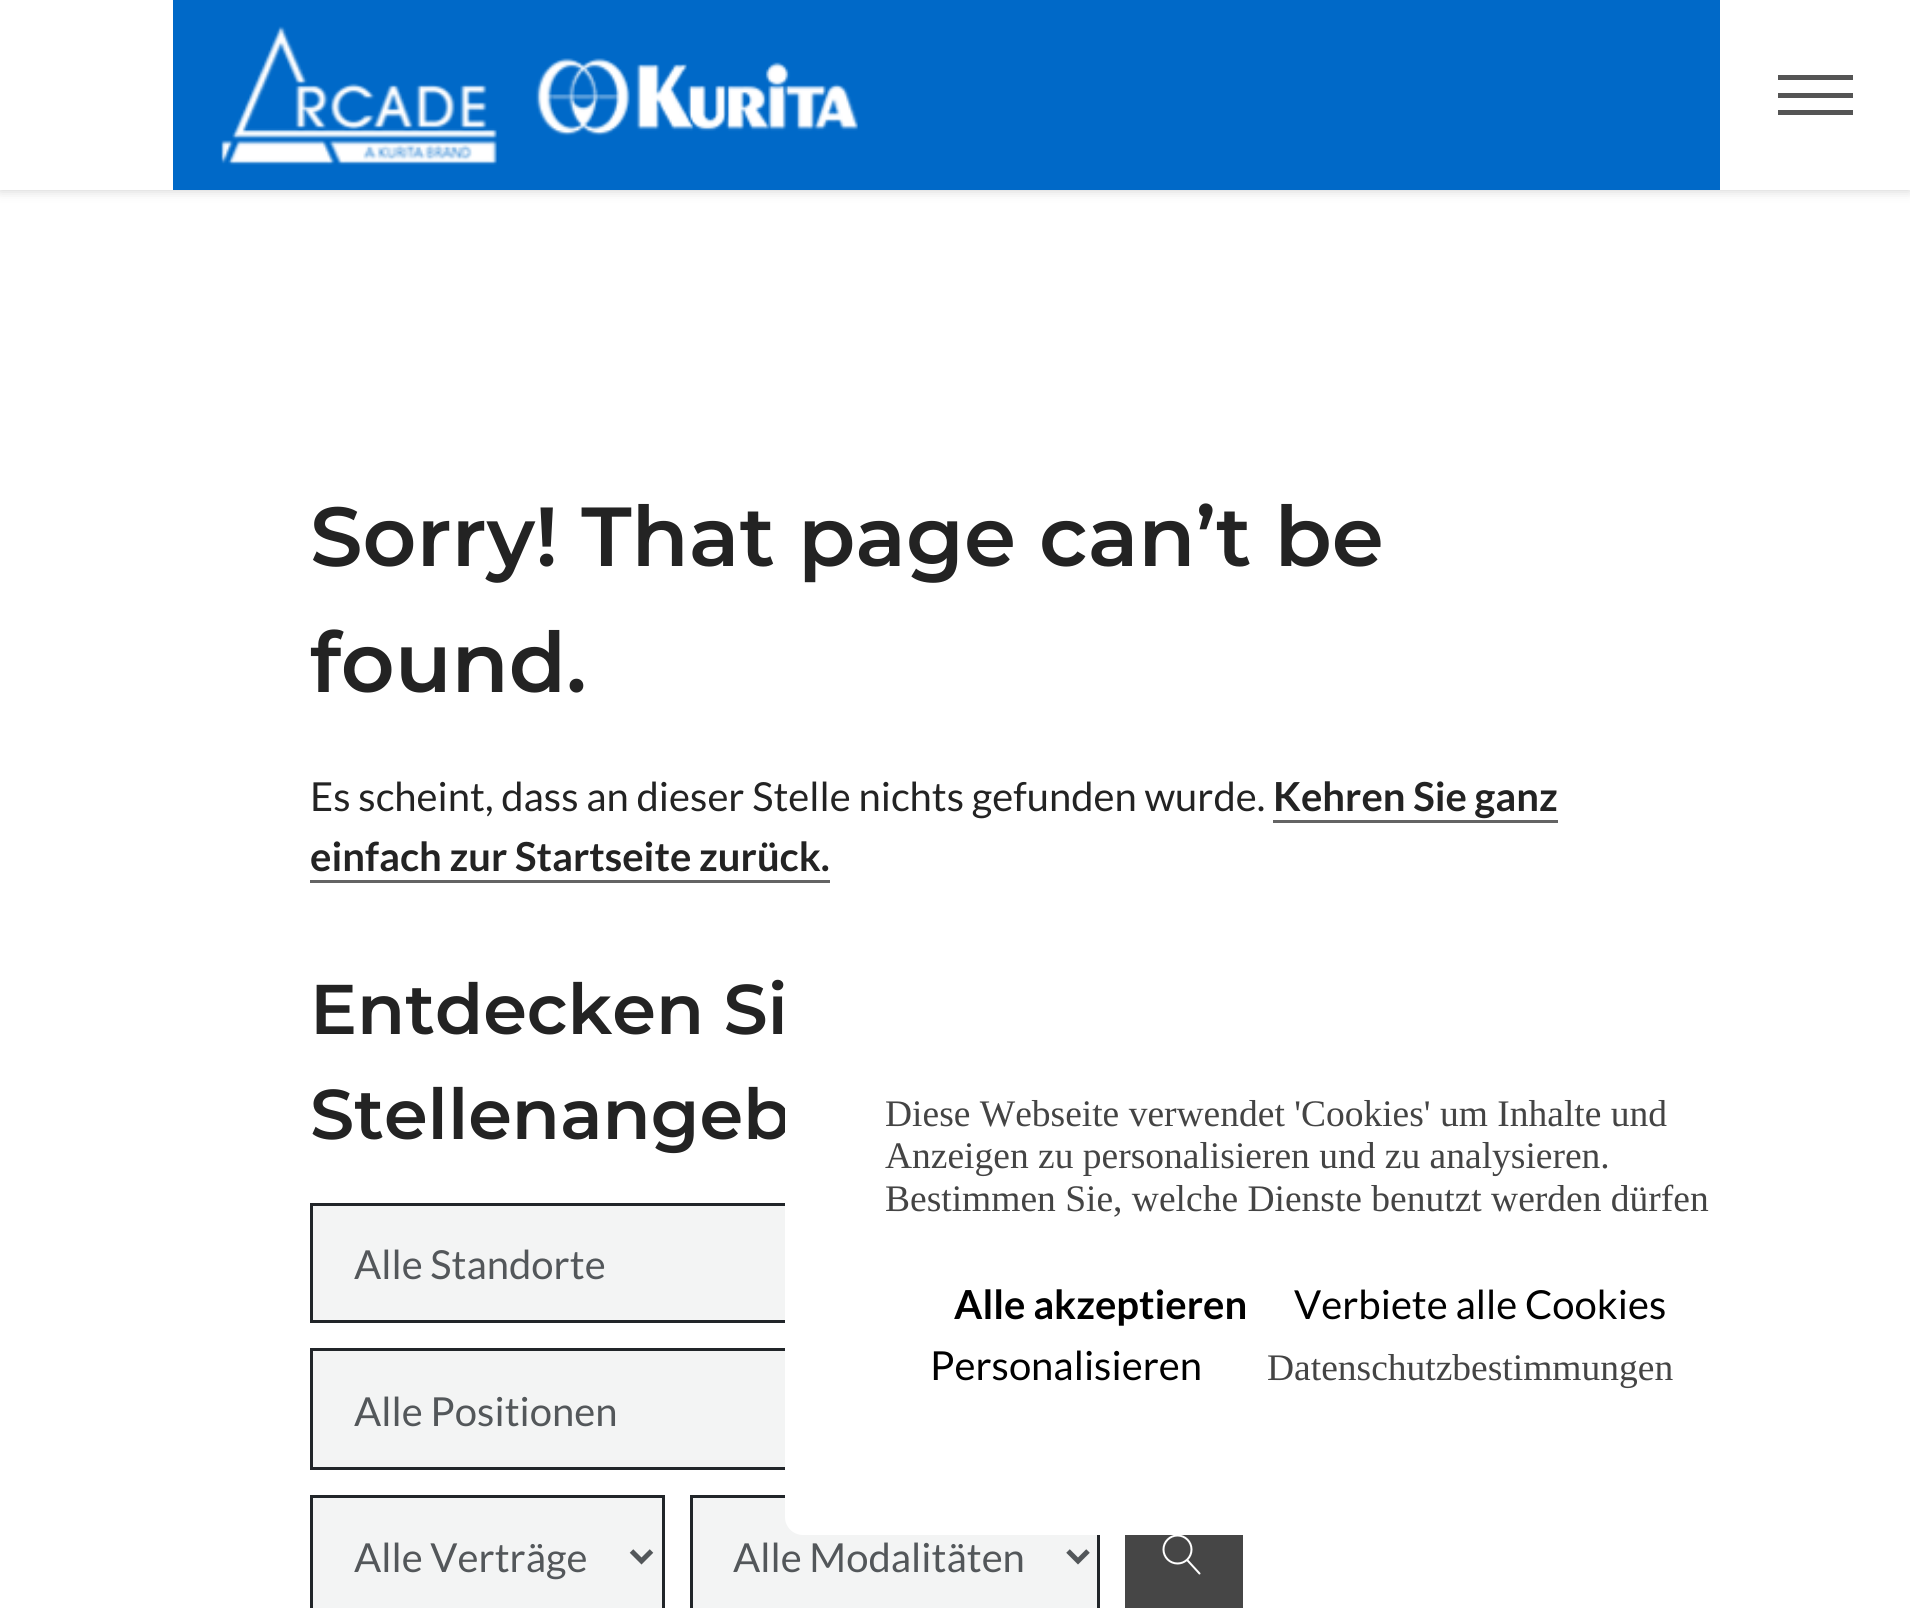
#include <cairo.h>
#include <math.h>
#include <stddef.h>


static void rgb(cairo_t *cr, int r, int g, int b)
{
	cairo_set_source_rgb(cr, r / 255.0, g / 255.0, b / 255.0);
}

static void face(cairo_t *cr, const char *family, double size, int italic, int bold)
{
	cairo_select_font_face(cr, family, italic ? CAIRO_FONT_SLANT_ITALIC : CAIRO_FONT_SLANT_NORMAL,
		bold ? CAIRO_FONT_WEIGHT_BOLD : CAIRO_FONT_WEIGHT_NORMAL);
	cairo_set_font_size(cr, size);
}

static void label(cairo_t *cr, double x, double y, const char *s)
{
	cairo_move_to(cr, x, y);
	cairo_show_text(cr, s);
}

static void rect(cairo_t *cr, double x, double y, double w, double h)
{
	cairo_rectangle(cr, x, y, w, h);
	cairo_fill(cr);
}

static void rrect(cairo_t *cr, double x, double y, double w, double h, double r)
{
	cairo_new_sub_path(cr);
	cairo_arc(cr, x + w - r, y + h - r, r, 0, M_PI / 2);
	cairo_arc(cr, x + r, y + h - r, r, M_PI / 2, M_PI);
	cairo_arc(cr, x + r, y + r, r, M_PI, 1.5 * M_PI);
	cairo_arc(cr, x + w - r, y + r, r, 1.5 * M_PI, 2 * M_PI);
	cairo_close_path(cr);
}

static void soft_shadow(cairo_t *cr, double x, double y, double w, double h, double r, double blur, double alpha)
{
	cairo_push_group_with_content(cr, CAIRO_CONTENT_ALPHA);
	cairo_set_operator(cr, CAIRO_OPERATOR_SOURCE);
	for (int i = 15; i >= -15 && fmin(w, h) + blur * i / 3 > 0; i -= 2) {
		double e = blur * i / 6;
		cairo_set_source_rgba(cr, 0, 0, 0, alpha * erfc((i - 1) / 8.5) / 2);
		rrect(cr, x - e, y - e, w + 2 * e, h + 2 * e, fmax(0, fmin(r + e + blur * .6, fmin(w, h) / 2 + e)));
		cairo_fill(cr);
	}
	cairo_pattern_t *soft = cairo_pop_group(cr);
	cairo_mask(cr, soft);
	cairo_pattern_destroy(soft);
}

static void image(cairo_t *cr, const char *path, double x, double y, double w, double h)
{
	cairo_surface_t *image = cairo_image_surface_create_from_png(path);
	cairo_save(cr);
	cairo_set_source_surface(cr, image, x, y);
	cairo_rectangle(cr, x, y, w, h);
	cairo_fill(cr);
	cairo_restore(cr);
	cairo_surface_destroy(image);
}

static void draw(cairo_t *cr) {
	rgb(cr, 255, 255, 255);
	cairo_paint(cr);
	rgb(cr, 0, 0, 0);
	soft_shadow(cr, 0, 0, 1910, 190, 0, 6, 0.2);
	rgb(cr, 0, 105, 200);
	rect(cr, 173, 0, 1547, 190);
	rgb(cr, 255, 255, 255);
	rect(cr, 0, 0, 173, 190);
	image(cr, "image0.png", 221, 26, 637, 139);
	rect(cr, 1720, 0, 190, 190);
	rgb(cr, 85, 85, 85);
	rect(cr, 1778, 75, 75, 5);
	rect(cr, 1778, 93, 75, 5);
	rect(cr, 1778, 110, 75, 5);
	face(cr, "Montserrat SemiBold", 83.6, 0, 0);
	rgb(cr, 35, 35, 35);
	label(cr, 310, 566, "Sorry! That page can’t be");
	label(cr, 310, 692, "found.");
	face(cr, "Lato", 40, 0, 0);
	label(cr, 310, 811, "Es scheint, dass an dieser Stelle nichts gefunden wurde.");
	face(cr, "Lato", 40, 0, 1);
	label(cr, 1273, 811, "Kehren Sie ganz");
	rgb(cr, 100, 100, 100);
	rect(cr, 1273, 820, 285, 3);
	rgb(cr, 35, 35, 35);
	label(cr, 310, 871, "einfach zur Startseite zurück.");
	rgb(cr, 100, 100, 100);
	rect(cr, 310, 880, 520, 3);
	face(cr, "Montserrat SemiBold", 70.25, 0, 0);
	rgb(cr, 35, 35, 35);
	label(cr, 310, 1034, "Entdecken Si");
	label(cr, 310, 1139, "Stellenangeb");
	rgb(cr, 243, 244, 244);
	rect(cr, 313, 1206, 472, 114);
	cairo_rectangle(cr, 311.5, 1204.5, 595, 117);
	rgb(cr, 33, 37, 41);
	cairo_set_line_width(cr, 3);
	cairo_stroke(cr);
	face(cr, "Lato", 40, 0, 0);
	rgb(cr, 83, 87, 90);
	label(cr, 354, 1279, "Alle Standorte");
	rgb(cr, 243, 244, 244);
	rect(cr, 313, 1351, 472, 116);
	cairo_rectangle(cr, 311.5, 1349.5, 1065, 119);
	rgb(cr, 33, 37, 41);
	cairo_stroke(cr);
	rgb(cr, 83, 87, 90);
	label(cr, 354, 1426, "Alle Positionen");
	rgb(cr, 243, 244, 244);
	cairo_rectangle(cr, 311.5, 1496.5, 352, 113);
	cairo_fill_preserve(cr);
	rgb(cr, 33, 37, 41);
	cairo_stroke(cr);
	cairo_new_path(cr);
	cairo_move_to(cr, 631.5, 1551);
	cairo_line_to(cr, 641.5, 1561);
	cairo_line_to(cr, 651.5, 1551);
	rgb(cr, 83, 87, 90);
	cairo_set_line_width(cr, 5);
	cairo_stroke(cr);
	label(cr, 354, 1572, "Alle Verträge");
	rgb(cr, 243, 244, 244);
	cairo_rectangle(cr, 691.5, 1496.5, 407, 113);
	cairo_fill_preserve(cr);
	rgb(cr, 33, 37, 41);
	cairo_set_line_width(cr, 3);
	cairo_stroke(cr);
	cairo_new_path(cr);
	cairo_move_to(cr, 1068, 1551);
	cairo_line_to(cr, 1078, 1561);
	cairo_line_to(cr, 1088, 1551);
	rgb(cr, 83, 87, 90);
	cairo_set_line_width(cr, 5);
	cairo_stroke(cr);
	label(cr, 733, 1572, "Alle Modalitäten");
	rgb(cr, 70, 70, 70);
	rect(cr, 1125, 1535, 118, 73);
	image(cr, "image1.png", 1162, 1535, 39, 40);
	rgb(cr, 255, 255, 255);
	rrect(cr, 785, 1018, 1050, 517, 18);
	cairo_fill(cr);
	face(cr, "Liberation Serif", 37.5, 0, 0);
	rgb(cr, 68, 68, 68);
	label(cr, 885, 1126, "Diese Webseite verwendet 'Cookies' um Inhalte und");
	label(cr, 885, 1168, "Anzeigen zu personalisieren und zu analysieren.");
	label(cr, 885, 1211, "Bestimmen Sie, welche Dienste benutzt werden dürfen");
	face(cr, "Lato", 40, 0, 1);
	rgb(cr, 0, 0, 0);
	label(cr, 954, 1319, "Alle akzeptieren");
	face(cr, "Lato", 40, 0, 0);
	label(cr, 1294, 1319, "Verbiete alle Cookies");
	label(cr, 930, 1380, "Personalisieren");
	face(cr, "Liberation Serif", 37.5, 0, 0);
	rgb(cr, 68, 68, 68);
	label(cr, 1267, 1380, "Datenschutzbestimmungen");
}

int main(void) {
	cairo_surface_t *surface = cairo_image_surface_create(CAIRO_FORMAT_RGB24, 1910, 1608);
	cairo_t *cr = cairo_create(surface);
	cairo_font_options_t *options = cairo_font_options_create();
	cairo_font_options_set_hint_metrics(options, CAIRO_HINT_METRICS_OFF);
	cairo_font_options_set_hint_style(options, CAIRO_HINT_STYLE_NONE);
	cairo_set_font_options(cr, options);
	cairo_set_miter_limit(cr, 4);
	draw(cr);
	cairo_surface_write_to_png(surface, "render.png");
	cairo_font_options_destroy(options);
	cairo_destroy(cr);
	cairo_surface_destroy(surface);
	return 0;
}
